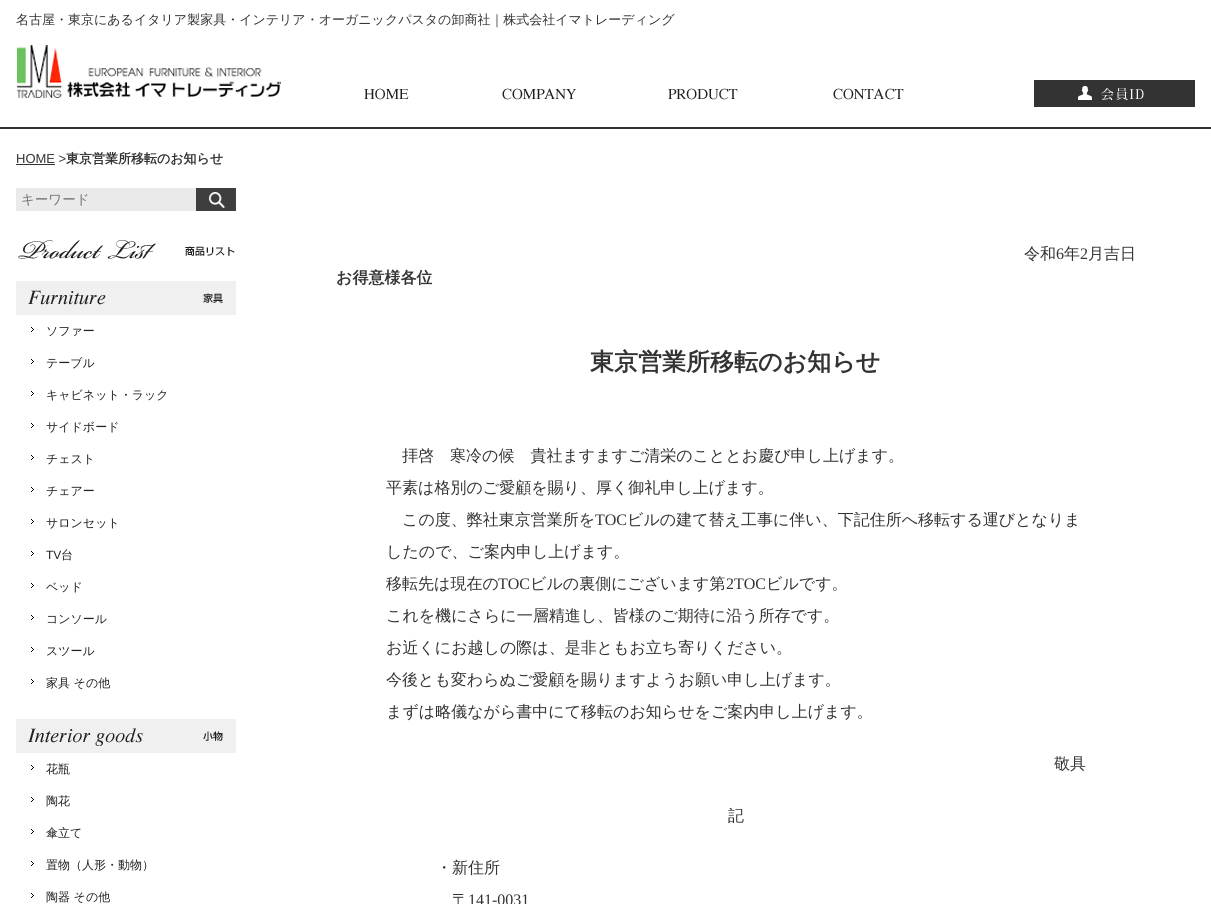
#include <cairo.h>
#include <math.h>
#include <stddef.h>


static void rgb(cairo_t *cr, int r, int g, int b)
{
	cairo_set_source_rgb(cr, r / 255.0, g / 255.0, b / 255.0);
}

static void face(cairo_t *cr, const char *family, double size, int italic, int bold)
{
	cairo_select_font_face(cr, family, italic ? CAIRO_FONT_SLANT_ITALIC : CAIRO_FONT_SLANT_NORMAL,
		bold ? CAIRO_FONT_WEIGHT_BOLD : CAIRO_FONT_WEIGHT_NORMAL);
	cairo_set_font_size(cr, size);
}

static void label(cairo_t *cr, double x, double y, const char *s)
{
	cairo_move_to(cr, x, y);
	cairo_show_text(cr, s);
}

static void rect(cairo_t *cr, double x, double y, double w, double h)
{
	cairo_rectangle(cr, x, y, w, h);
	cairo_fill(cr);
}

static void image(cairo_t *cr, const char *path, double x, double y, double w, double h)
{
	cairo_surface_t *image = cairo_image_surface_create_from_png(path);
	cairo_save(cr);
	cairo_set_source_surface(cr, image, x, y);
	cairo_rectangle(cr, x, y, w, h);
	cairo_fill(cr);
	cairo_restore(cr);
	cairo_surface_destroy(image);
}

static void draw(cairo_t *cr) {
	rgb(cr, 255, 255, 255);
	cairo_paint(cr);
	face(cr, "WenQuanYi Zen Hei Medium", 13, 0, 0);
	rgb(cr, 51, 51, 51);
	label(cr, 16, 24, "名古屋・東京にあるイタリア製家具・インテリア・オーガニックパスタの卸商社｜株式会社イマトレーディング");
	image(cr, "image0.png", 16, 45, 265, 53);
	image(cr, "image1.png", 364, 88, 45, 12);
	image(cr, "image2.png", 502, 88, 75, 12);
	image(cr, "image3.png", 668, 88, 70, 12);
	image(cr, "image4.png", 833, 88, 71, 12);
	image(cr, "image5.png", 1034, 80, 161, 27);
	rect(cr, 0, 127, 1211, 2);
	face(cr, "Liberation Sans", 13, 0, 0);
	label(cr, 16, 163, "HOME >");
	rect(cr, 16, 164, 39, 1);
	face(cr, "WenQuanYi Zen Hei", 13, 0, 1);
	label(cr, 66, 163, "東京営業所移転のお知らせ");
	rgb(cr, 234, 234, 234);
	rect(cr, 16, 188, 180, 23);
	face(cr, "WenQuanYi Zen Hei Medium", 13.5, 0, 0);
	rgb(cr, 117, 117, 117);
	label(cr, 21, 204, "キーワード");
	image(cr, "image6.png", 196, 188, 40, 23);
	image(cr, "image7.png", 18, 240, 217, 19);
	image(cr, "image8.png", 16, 281, 220, 34);
	image(cr, "image9.png", 31, 327, 3, 5);
	face(cr, "WenQuanYi Zen Hei Medium", 12, 0, 0);
	rgb(cr, 31, 31, 31);
	label(cr, 46, 335, "ソファー");
	image(cr, "image9.png", 31, 359, 3, 5);
	label(cr, 46, 367, "テーブル");
	image(cr, "image9.png", 31, 391, 3, 5);
	label(cr, 46, 399, "キャビネット・ラック");
	image(cr, "image9.png", 31, 423, 3, 5);
	label(cr, 46, 431, "サイドボード");
	image(cr, "image9.png", 31, 455, 3, 5);
	label(cr, 46, 463, "チェスト");
	image(cr, "image9.png", 31, 487, 3, 5);
	label(cr, 46, 495, "チェアー");
	image(cr, "image9.png", 31, 519, 3, 5);
	label(cr, 46, 527, "サロンセット");
	image(cr, "image9.png", 31, 551, 3, 5);
	face(cr, "Liberation Sans", 12, 0, 0);
	label(cr, 46, 559, "TV");
	face(cr, "WenQuanYi Zen Hei Medium", 12, 0, 0);
	label(cr, 61, 559, "台");
	image(cr, "image9.png", 31, 583, 3, 5);
	label(cr, 46, 591, "ベッド");
	image(cr, "image9.png", 31, 615, 3, 5);
	label(cr, 46, 623, "コンソール");
	image(cr, "image9.png", 31, 647, 3, 5);
	label(cr, 46, 655, "スツール");
	image(cr, "image9.png", 31, 679, 3, 5);
	label(cr, 46, 687, "家具 その他");
	image(cr, "image10.png", 16, 719, 220, 34);
	image(cr, "image9.png", 31, 765, 3, 5);
	label(cr, 46, 773, "花瓶");
	image(cr, "image9.png", 31, 797, 3, 5);
	label(cr, 46, 805, "陶花");
	image(cr, "image9.png", 31, 829, 3, 5);
	label(cr, 46, 837, "傘立て");
	image(cr, "image9.png", 31, 861, 3, 5);
	label(cr, 46, 869, "置物（人形・動物）");
	image(cr, "image9.png", 31, 893, 3, 5);
	label(cr, 46, 901, "陶器 その他");
	face(cr, "WenQuanYi Zen Hei Medium", 16, 0, 0);
	rgb(cr, 51, 51, 51);
	label(cr, 1024, 259, "令和");
	face(cr, "Liberation Serif", 16, 0, 0);
	label(cr, 1056, 259, "6");
	face(cr, "WenQuanYi Zen Hei Medium", 16, 0, 0);
	label(cr, 1064, 259, "年");
	face(cr, "Liberation Serif", 16, 0, 0);
	label(cr, 1080, 259, "2");
	face(cr, "WenQuanYi Zen Hei Medium", 16, 0, 0);
	label(cr, 1088, 259, "月吉日");
	face(cr, "WenQuanYi Zen Hei", 16, 0, 1);
	label(cr, 336, 283, "お得意様各位");
	face(cr, "WenQuanYi Zen Hei", 24, 0, 1);
	label(cr, 590, 370, "東京営業所移転のお知らせ");
	face(cr, "WenQuanYi Zen Hei Medium", 16, 0, 0);
	label(cr, 402, 461, "拝啓　寒冷の候　貴社ますますご清栄のこととお慶び申し上げます。");
	label(cr, 386, 493, "平素は格別のご愛顧を賜り、厚く御礼申し上げます。");
	label(cr, 402, 525, "この度、弊社東京営業所を");
	face(cr, "Liberation Serif", 16, 0, 0);
	label(cr, 595, 525, "TOC");
	face(cr, "WenQuanYi Zen Hei Medium", 16, 0, 0);
	label(cr, 627, 525, "ビルの建て替え工事に伴い、下記住所へ移転する運びとなりま");
	label(cr, 386, 557, "したので、ご案内申し上げます。");
	label(cr, 386, 589, "移転先は現在の");
	face(cr, "Liberation Serif", 16, 0, 0);
	label(cr, 498, 589, "TOC");
	face(cr, "WenQuanYi Zen Hei Medium", 16, 0, 0);
	label(cr, 530, 589, "ビルの裏側にございます第");
	face(cr, "Liberation Serif", 16, 0, 0);
	label(cr, 726, 589, "2TOC");
	face(cr, "WenQuanYi Zen Hei Medium", 16, 0, 0);
	label(cr, 766, 589, "ビルです。");
	label(cr, 386, 621, "これを機にさらに一層精進し、皆様のご期待に沿う所存です。");
	label(cr, 386, 653, "お近くにお越しの際は、是非ともお立ち寄りください。");
	label(cr, 386, 685, "今後とも変わらぬご愛顧を賜りますようお願い申し上げます。");
	label(cr, 386, 717, "まずは略儀ながら書中にて移転のお知らせをご案内申し上げます。");
	label(cr, 1054, 769, "敬具");
	label(cr, 728, 821, "記");
	label(cr, 436, 873, "・新住所");
	label(cr, 452, 905, "〒");
	face(cr, "Liberation Serif", 16, 0, 0);
	label(cr, 468, 905, "141-0031");
}

int main(void) {
	cairo_surface_t *surface = cairo_image_surface_create(CAIRO_FORMAT_RGB24, 1211, 904);
	cairo_t *cr = cairo_create(surface);
	cairo_font_options_t *options = cairo_font_options_create();
	cairo_font_options_set_hint_metrics(options, CAIRO_HINT_METRICS_OFF);
	cairo_font_options_set_hint_style(options, CAIRO_HINT_STYLE_NONE);
	cairo_set_font_options(cr, options);
	cairo_set_miter_limit(cr, 4);
	draw(cr);
	cairo_surface_write_to_png(surface, "render.png");
	cairo_font_options_destroy(options);
	cairo_destroy(cr);
	cairo_surface_destroy(surface);
	return 0;
}
